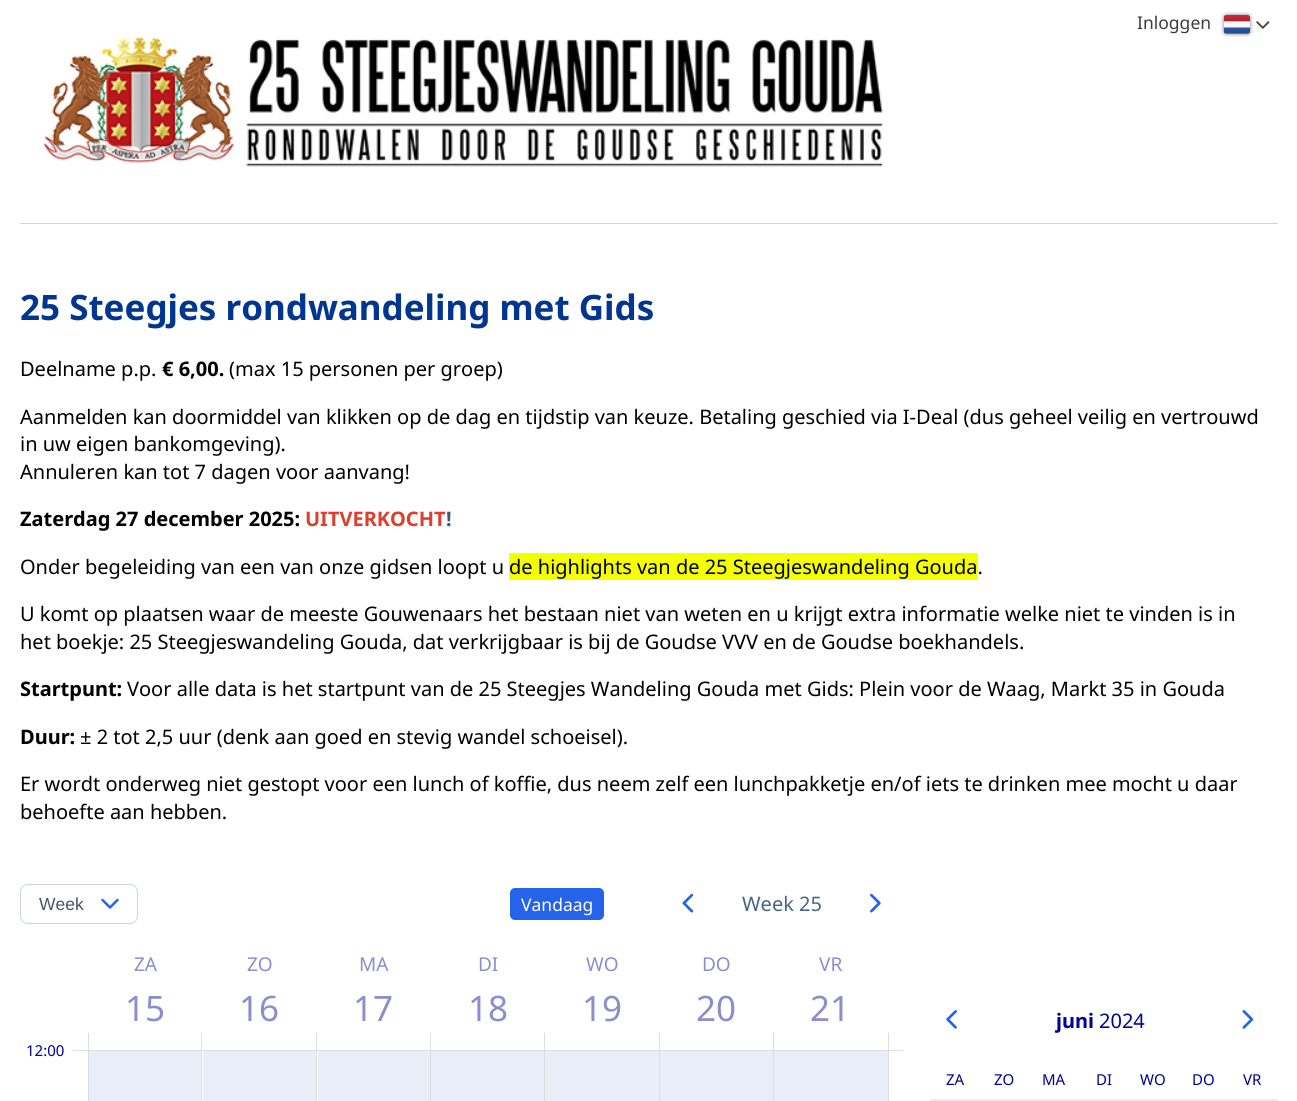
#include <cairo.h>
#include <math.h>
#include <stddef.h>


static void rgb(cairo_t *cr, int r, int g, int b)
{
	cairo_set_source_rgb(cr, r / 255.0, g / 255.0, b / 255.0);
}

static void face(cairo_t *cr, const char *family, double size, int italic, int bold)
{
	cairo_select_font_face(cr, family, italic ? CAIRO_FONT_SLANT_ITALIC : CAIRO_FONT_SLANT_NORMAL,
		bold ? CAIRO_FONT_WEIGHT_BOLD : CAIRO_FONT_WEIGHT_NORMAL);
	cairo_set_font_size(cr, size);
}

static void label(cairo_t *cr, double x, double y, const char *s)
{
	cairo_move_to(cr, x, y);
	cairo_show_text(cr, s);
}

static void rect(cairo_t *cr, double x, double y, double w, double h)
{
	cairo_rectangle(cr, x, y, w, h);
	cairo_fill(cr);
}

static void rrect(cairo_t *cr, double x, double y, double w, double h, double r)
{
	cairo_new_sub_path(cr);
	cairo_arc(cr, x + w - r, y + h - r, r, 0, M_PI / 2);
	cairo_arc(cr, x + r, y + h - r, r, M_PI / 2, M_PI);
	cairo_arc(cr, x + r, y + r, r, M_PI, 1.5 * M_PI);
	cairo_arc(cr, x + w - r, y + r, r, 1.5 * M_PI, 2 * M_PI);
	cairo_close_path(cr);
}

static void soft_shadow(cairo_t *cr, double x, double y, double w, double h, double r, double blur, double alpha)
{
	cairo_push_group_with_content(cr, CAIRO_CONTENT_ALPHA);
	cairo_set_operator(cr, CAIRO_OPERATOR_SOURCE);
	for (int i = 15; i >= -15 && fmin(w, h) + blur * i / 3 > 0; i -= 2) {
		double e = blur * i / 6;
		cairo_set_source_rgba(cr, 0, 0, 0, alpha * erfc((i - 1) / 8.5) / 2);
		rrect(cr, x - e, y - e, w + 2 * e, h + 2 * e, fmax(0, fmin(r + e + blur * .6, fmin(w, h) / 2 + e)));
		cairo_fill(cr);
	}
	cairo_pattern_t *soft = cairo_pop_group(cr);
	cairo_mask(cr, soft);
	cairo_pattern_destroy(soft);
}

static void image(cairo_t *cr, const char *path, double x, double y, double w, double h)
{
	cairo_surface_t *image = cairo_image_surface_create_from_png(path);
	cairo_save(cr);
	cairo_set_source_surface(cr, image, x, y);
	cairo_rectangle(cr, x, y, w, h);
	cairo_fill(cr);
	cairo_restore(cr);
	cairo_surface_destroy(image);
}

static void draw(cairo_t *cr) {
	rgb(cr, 255, 255, 255);
	cairo_paint(cr);
	face(cr, "Noto Sans", 17.5, 0, 0);
	rgb(cr, 60, 60, 61);
	label(cr, 1137, 29, "Inloggen");
	rgb(cr, 119, 119, 119);
	soft_shadow(cr, 1224, 15, 26, 19, 2.5, 2, 1);
	image(cr, "image0.png", 1223, 15, 27, 19);
	image(cr, "image1.png", 1256, 21, 14, 8);
	rgb(cr, 203, 213, 225);
	rect(cr, 20, 223, 1258, 1);
	image(cr, "image2.png", 43, 37, 840, 130);
	face(cr, "Noto Sans", 35, 0, 1);
	rgb(cr, 0, 54, 143);
	label(cr, 20, 320, "25 Steegjes rondwandeling met Gids");
	face(cr, "Noto Sans", 20, 0, 0);
	rgb(cr, 0, 0, 0);
	label(cr, 20, 376, "Deelname p.p.");
	face(cr, "Noto Sans", 20, 0, 1);
	label(cr, 162, 376, "€ 6,00.");
	face(cr, "Noto Sans", 20, 0, 0);
	label(cr, 229, 376, "(max 15 personen per groep)");
	label(cr, 20, 424, "Aanmelden kan doormiddel van klikken op de dag en tijdstip van keuze. Betaling geschied via I-Deal (dus geheel veilig en vertrouwd");
	label(cr, 20, 451, "in uw eigen bankomgeving).");
	label(cr, 20, 479, "Annuleren kan tot 7 dagen voor aanvang!");
	face(cr, "Noto Sans", 20, 0, 1);
	label(cr, 20, 526, "Zaterdag 27 december 2025:");
	rgb(cr, 224, 62, 45);
	label(cr, 305, 526, "UITVERKOCHT");
	rgb(cr, 71, 85, 105);
	label(cr, 446, 526, "!");
	face(cr, "Noto Sans", 20, 0, 0);
	rgb(cr, 0, 0, 0);
	label(cr, 20, 574, "Onder begeleiding van een van onze gidsen loopt u");
	rgb(cr, 243, 255, 2);
	rect(cr, 509, 553, 469, 27);
	rgb(cr, 0, 0, 0);
	label(cr, 509, 574, "de highlights van de 25 Steegjeswandeling Gouda.");
	label(cr, 20, 621, "U komt op plaatsen waar de meeste Gouwenaars het bestaan niet van weten en u krijgt extra informatie welke niet te vinden is in");
	label(cr, 20, 649, "het boekje: 25 Steegjeswandeling Gouda, dat verkrijgbaar is bij de Goudse VVV en de Goudse boekhandels.");
	face(cr, "Noto Sans", 20, 0, 1);
	label(cr, 20, 696, "Startpunt:");
	face(cr, "Noto Sans", 20, 0, 0);
	label(cr, 127, 696, "Voor alle data is het startpunt van de 25 Steegjes Wandeling Gouda met Gids: Plein voor de Waag, Markt 35 in Gouda");
	face(cr, "Noto Sans", 20, 0, 1);
	label(cr, 20, 744, "Duur:");
	face(cr, "Noto Sans", 20, 0, 0);
	label(cr, 80, 744, "± 2 tot 2,5 uur (denk aan goed en stevig wandel schoeisel).");
	label(cr, 20, 791, "Er wordt onderweg niet gestopt voor een lunch of koffie, dus neem zelf een lunchpakketje en/of iets te drinken mee mocht u daar");
	label(cr, 20, 819, "behoefte aan hebben.");
	rrect(cr, 20.5, 884.5, 117, 39, 7.5);
	rgb(cr, 203, 213, 225);
	cairo_set_line_width(cr, 1);
	cairo_stroke(cr);
	face(cr, "Liberation Sans", 17.5, 0, 0);
	rgb(cr, 71, 85, 105);
	label(cr, 39, 910, "Week");
	image(cr, "image3.png", 101, 898, 18, 11);
	rgb(cr, 37, 99, 235);
	rrect(cr, 510, 888, 94, 32, 5);
	cairo_fill(cr);
	face(cr, "Noto Sans", 17.5, 0, 0);
	rgb(cr, 255, 255, 255);
	label(cr, 521, 911, "Vandaag");
	image(cr, "image4.png", 682, 893, 12, 20);
	face(cr, "Noto Sans", 20, 0, 0);
	rgb(cr, 68, 102, 136);
	label(cr, 742, 911, "Week 25");
	image(cr, "image5.png", 870, 893, 11, 20);
	face(cr, "Noto Sans", 19, 0, 0);
	rgb(cr, 140, 141, 207);
	label(cr, 134, 971, "ZA");
	face(cr, "Noto Sans", 35, 0, 0);
	label(cr, 125, 1021, "15");
	face(cr, "Noto Sans", 19, 0, 0);
	label(cr, 247, 971, "ZO");
	face(cr, "Noto Sans", 35, 0, 0);
	label(cr, 239, 1021, "16");
	face(cr, "Noto Sans", 19, 0, 0);
	label(cr, 359, 971, "MA");
	face(cr, "Noto Sans", 35, 0, 0);
	label(cr, 353, 1021, "17");
	face(cr, "Noto Sans", 19, 0, 0);
	label(cr, 478, 971, "DI");
	face(cr, "Noto Sans", 35, 0, 0);
	label(cr, 468, 1021, "18");
	face(cr, "Noto Sans", 19, 0, 0);
	label(cr, 586, 971, "WO");
	face(cr, "Noto Sans", 35, 0, 0);
	label(cr, 582, 1021, "19");
	face(cr, "Noto Sans", 19, 0, 0);
	label(cr, 702, 971, "DO");
	face(cr, "Noto Sans", 35, 0, 0);
	label(cr, 696, 1021, "20");
	face(cr, "Noto Sans", 19, 0, 0);
	label(cr, 819, 971, "VR");
	face(cr, "Noto Sans", 35, 0, 0);
	label(cr, 810, 1021, "21");
	rgb(cr, 221, 221, 221);
	rect(cr, 88, 1033, 1, 68);
	rgb(cr, 232, 238, 247);
	rect(cr, 89, 1051, 112, 50);
	rgb(cr, 221, 221, 221);
	rect(cr, 201, 1033, 1, 68);
	rect(cr, 316, 1033, 1, 68);
	rect(cr, 430, 1033, 1, 68);
	rect(cr, 544, 1033, 1, 68);
	rect(cr, 659, 1033, 1, 68);
	rect(cr, 773, 1033, 1, 68);
	rect(cr, 88, 1050, 800, 1);
	face(cr, "Noto Sans", 15, 0, 0);
	rgb(cr, 0, 1, 149);
	label(cr, 26, 1056, "12:00");
	rgb(cr, 221, 221, 221);
	rect(cr, 73, 1050, 15, 1);
	rgb(cr, 232, 238, 247);
	rect(cr, 203, 1051, 113, 50);
	rect(cr, 318, 1051, 112, 50);
	rect(cr, 431, 1051, 113, 50);
	rect(cr, 545, 1051, 114, 50);
	rect(cr, 660, 1051, 113, 50);
	rect(cr, 774, 1051, 114, 50);
	rgb(cr, 221, 221, 221);
	rect(cr, 888, 1033, 1, 68);
	rect(cr, 889, 1050, 14, 1);
	image(cr, "image6.png", 946, 1010, 11, 19);
	face(cr, "Noto Sans", 20, 0, 1);
	rgb(cr, 0, 1, 149);
	label(cr, 1056, 1028, "juni");
	face(cr, "Noto Sans", 20, 0, 0);
	label(cr, 1099, 1028, "2024");
	image(cr, "image7.png", 1242, 1010, 12, 19);
	face(cr, "Noto Sans", 15, 0, 0);
	label(cr, 946, 1085, "ZA");
	label(cr, 994, 1085, "ZO");
	label(cr, 1042, 1085, "MA");
	label(cr, 1096, 1085, "DI");
	label(cr, 1140, 1085, "WO");
	label(cr, 1192, 1085, "DO");
	label(cr, 1243, 1085, "VR");
	rgb(cr, 232, 238, 247);
	rect(cr, 930, 1099, 348, 2);
}

int main(void) {
	cairo_surface_t *surface = cairo_image_surface_create(CAIRO_FORMAT_RGB24, 1297, 1101);
	cairo_t *cr = cairo_create(surface);
	cairo_font_options_t *options = cairo_font_options_create();
	cairo_font_options_set_hint_metrics(options, CAIRO_HINT_METRICS_OFF);
	cairo_font_options_set_hint_style(options, CAIRO_HINT_STYLE_NONE);
	cairo_set_font_options(cr, options);
	cairo_set_miter_limit(cr, 4);
	draw(cr);
	cairo_surface_write_to_png(surface, "render.png");
	cairo_font_options_destroy(options);
	cairo_destroy(cr);
	cairo_surface_destroy(surface);
	return 0;
}
